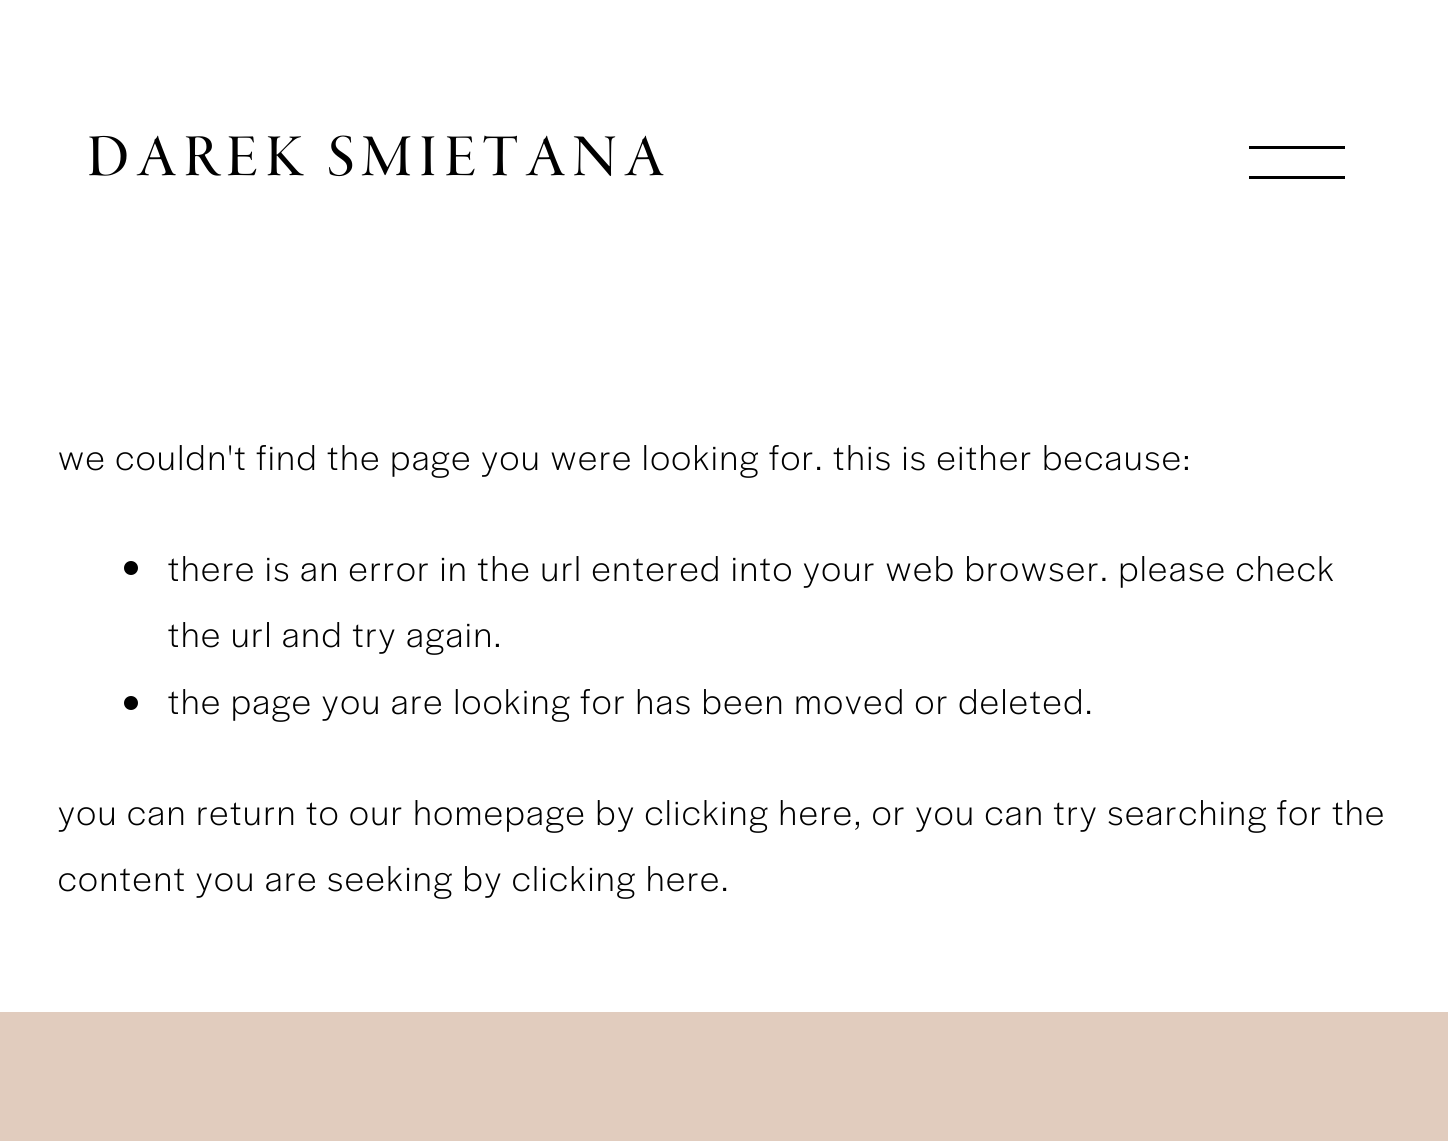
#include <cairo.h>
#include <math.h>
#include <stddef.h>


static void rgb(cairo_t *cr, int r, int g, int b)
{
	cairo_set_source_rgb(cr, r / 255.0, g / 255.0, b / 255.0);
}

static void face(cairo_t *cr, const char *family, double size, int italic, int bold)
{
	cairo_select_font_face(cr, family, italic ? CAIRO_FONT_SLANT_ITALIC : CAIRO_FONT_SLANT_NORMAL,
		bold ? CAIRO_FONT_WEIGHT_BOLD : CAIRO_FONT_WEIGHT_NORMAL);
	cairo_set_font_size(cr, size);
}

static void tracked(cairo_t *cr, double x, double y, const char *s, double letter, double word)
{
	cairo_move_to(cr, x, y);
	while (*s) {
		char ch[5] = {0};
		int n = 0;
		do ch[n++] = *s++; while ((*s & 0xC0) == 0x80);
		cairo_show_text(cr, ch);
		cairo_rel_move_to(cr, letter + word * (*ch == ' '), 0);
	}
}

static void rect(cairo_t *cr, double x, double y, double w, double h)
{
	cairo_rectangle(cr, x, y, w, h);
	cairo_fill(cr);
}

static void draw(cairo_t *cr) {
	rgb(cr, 255, 255, 255);
	cairo_paint(cr);
	face(cr, "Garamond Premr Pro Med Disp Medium", 61.4, 0, 0);
	rgb(cr, 0, 0, 0);
	tracked(cr, 87, 175, "DAREK SMIETANA", 7.4, 0);
	rect(cr, 1249, 146, 96, 3);
	rect(cr, 1249, 176, 96, 3);
	face(cr, "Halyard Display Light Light", 37.05, 0, 0);
	tracked(cr, 58, 470, "we couldn't find the page you were looking for. this is either because:", 1.85, 0);
	cairo_new_path(cr);
	cairo_arc(cr, 131, 568, 7, 0, 2 * M_PI);
	cairo_fill(cr);
	tracked(cr, 168, 581, "there is an error in the url entered into your web browser. please check", 1.85, 0);
	tracked(cr, 168, 647, "the url and try again.", 1.85, 0);
	cairo_new_path(cr);
	cairo_arc(cr, 131, 703, 7, 0, 2 * M_PI);
	cairo_fill(cr);
	tracked(cr, 168, 714, "the page you are looking for has been moved or deleted.", 1.85, 0);
	tracked(cr, 58, 825, "you can return to our homepage by clicking here, or you can try searching for the", 1.85, 0);
	tracked(cr, 58, 891, "content you are seeking by clicking here.", 1.85, 0);
	rgb(cr, 225, 204, 190);
	rect(cr, 0, 1012, 1448, 129);
}

int main(void) {
	cairo_surface_t *surface = cairo_image_surface_create(CAIRO_FORMAT_RGB24, 1448, 1141);
	cairo_t *cr = cairo_create(surface);
	cairo_font_options_t *options = cairo_font_options_create();
	cairo_font_options_set_hint_metrics(options, CAIRO_HINT_METRICS_OFF);
	cairo_font_options_set_hint_style(options, CAIRO_HINT_STYLE_NONE);
	cairo_set_font_options(cr, options);
	cairo_set_miter_limit(cr, 4);
	draw(cr);
	cairo_surface_write_to_png(surface, "render.png");
	cairo_font_options_destroy(options);
	cairo_destroy(cr);
	cairo_surface_destroy(surface);
	return 0;
}
